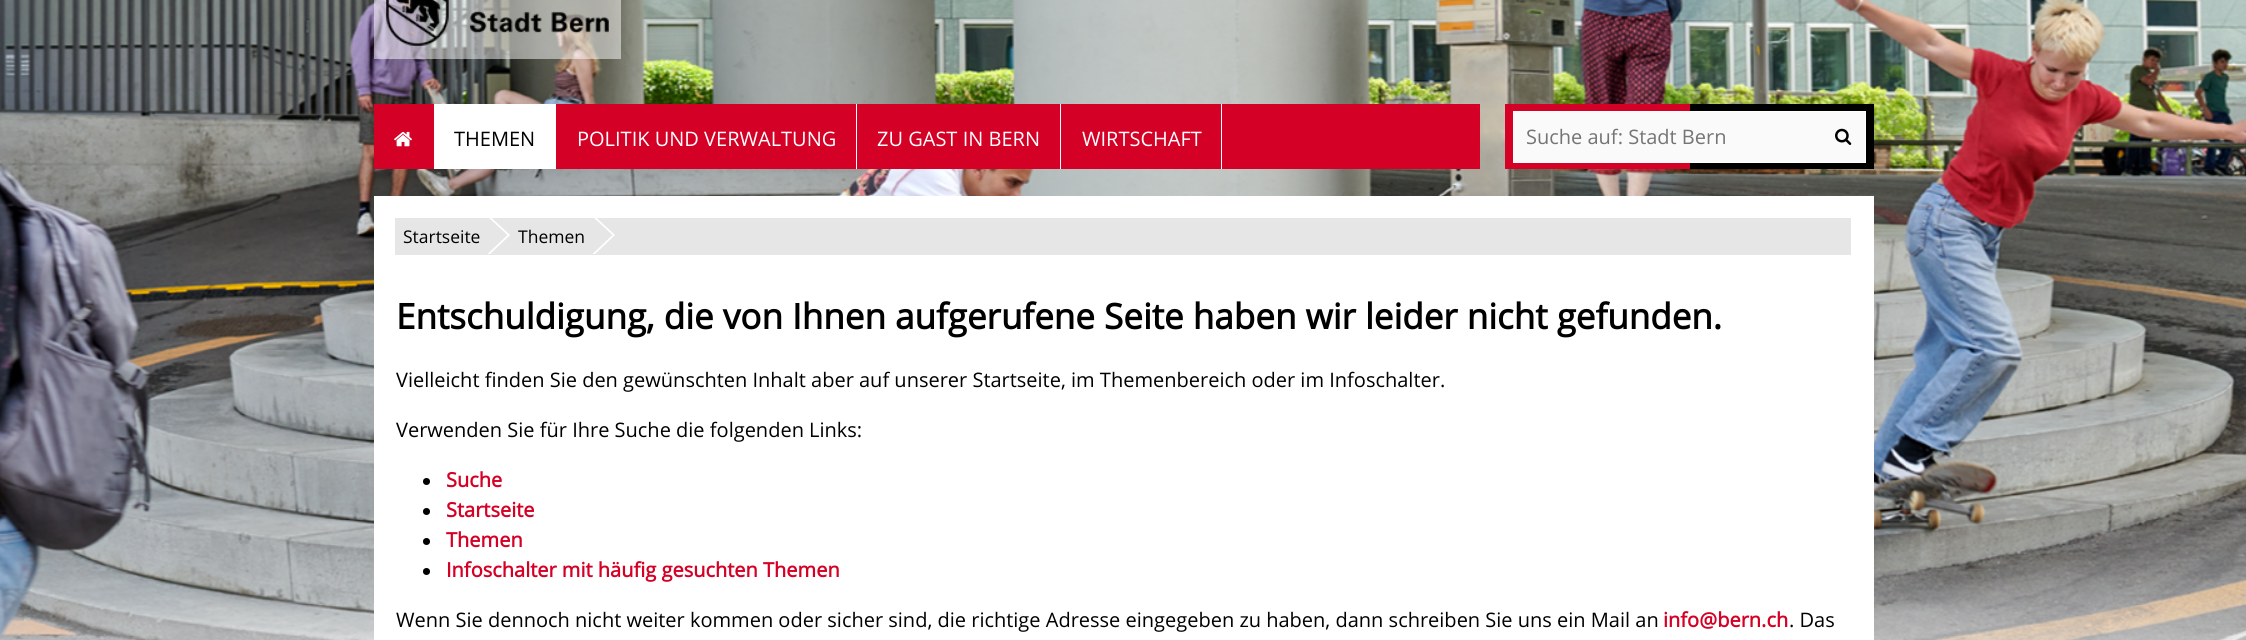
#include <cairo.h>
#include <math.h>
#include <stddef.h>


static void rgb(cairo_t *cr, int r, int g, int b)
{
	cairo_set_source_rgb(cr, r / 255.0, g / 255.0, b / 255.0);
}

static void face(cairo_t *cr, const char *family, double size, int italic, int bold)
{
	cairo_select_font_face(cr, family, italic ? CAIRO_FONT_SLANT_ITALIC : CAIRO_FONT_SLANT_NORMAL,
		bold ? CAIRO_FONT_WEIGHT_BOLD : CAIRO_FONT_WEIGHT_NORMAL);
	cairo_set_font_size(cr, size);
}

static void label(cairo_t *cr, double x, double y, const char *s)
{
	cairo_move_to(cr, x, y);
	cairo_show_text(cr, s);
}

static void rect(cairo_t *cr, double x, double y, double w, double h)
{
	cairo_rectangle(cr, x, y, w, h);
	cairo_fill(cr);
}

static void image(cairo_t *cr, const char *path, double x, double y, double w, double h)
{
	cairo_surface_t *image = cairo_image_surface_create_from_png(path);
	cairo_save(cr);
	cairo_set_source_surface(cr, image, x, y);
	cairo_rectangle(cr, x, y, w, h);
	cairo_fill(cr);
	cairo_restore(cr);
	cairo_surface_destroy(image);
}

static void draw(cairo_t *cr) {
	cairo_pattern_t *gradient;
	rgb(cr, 255, 255, 255);
	cairo_paint(cr);
	image(cr, "image0.png", 0, 0, 2246, 640);
	cairo_set_source_rgba(cr, 1, 1, 1, 0.5);
	rect(cr, 374, 0, 247, 59);
	image(cr, "image1.png", 386, 0, 223, 46);
	rgb(cr, 213, 0, 37);
	rect(cr, 374, 104, 1106, 65);
	image(cr, "image2.png", 394, 131, 18, 16);
	rgb(cr, 255, 255, 255);
	rect(cr, 434, 104, 122, 65);
	face(cr, "Open Sans", 20, 0, 0);
	rgb(cr, 0, 0, 0);
	label(cr, 454, 146, "THEMEN");
	rgb(cr, 255, 255, 255);
	rect(cr, 856, 104, 1, 65);
	label(cr, 577, 146, "POLITIK UND VERWALTUNG");
	rect(cr, 1060, 104, 1, 65);
	label(cr, 877, 146, "ZU GAST IN BERN");
	rect(cr, 1221, 104, 1, 65);
	label(cr, 1082, 146, "WIRTSCHAFT");
	gradient = cairo_pattern_create_linear(1874, 169, 1505, 169);
	cairo_pattern_add_color_stop_rgba(gradient, 0, 0, 0, 0, 1);
	cairo_pattern_add_color_stop_rgba(gradient, 0.5, 0, 0, 0, 1);
	cairo_pattern_add_color_stop_rgba(gradient, 0.5, 0.835, 0, 0.145, 1);
	cairo_pattern_add_color_stop_rgba(gradient, 1, 0.835, 0, 0.145, 1);
	cairo_set_source(cr, gradient);
	cairo_pattern_destroy(gradient);
	rect(cr, 1505, 104, 369, 65);
	rgb(cr, 250, 250, 250);
	cairo_rectangle(cr, 1513.5, 111.5, 352, 51);
	cairo_fill_preserve(cr);
	rgb(cr, 255, 255, 255);
	cairo_set_line_width(cr, 1);
	cairo_stroke(cr);
	rgb(cr, 117, 117, 117);
	label(cr, 1526, 144, "Suche auf: Stadt Bern");
	image(cr, "image3.png", 1835, 128, 17, 17);
	rgb(cr, 255, 255, 255);
	rect(cr, 374, 196, 1500, 444);
	rgb(cr, 230, 230, 230);
	rect(cr, 395, 218, 1456, 37);
	face(cr, "Open Sans", 17.5, 0, 0);
	rgb(cr, 0, 0, 0);
	label(cr, 403, 243, "Startseite");
	rgb(cr, 255, 255, 255);
	cairo_new_path(cr);
	cairo_move_to(cr, 490, 216.5);
	cairo_line_to(cr, 487.5, 216.5);
	cairo_line_to(cr, 507.5, 235);
	cairo_line_to(cr, 487.5, 254);
	cairo_line_to(cr, 490, 254);
	cairo_line_to(cr, 510, 235);
	cairo_close_path(cr);
	cairo_fill(cr);
	rgb(cr, 0, 0, 0);
	label(cr, 518, 243, "Themen");
	rgb(cr, 255, 255, 255);
	cairo_new_path(cr);
	cairo_move_to(cr, 595, 216.5);
	cairo_line_to(cr, 592.5, 216.5);
	cairo_line_to(cr, 612.5, 235);
	cairo_line_to(cr, 592.5, 254);
	cairo_line_to(cr, 595, 254);
	cairo_line_to(cr, 615, 235);
	cairo_close_path(cr);
	cairo_fill(cr);
	face(cr, "Open Sans", 35, 0, 1);
	rgb(cr, 0, 0, 0);
	label(cr, 396, 329, "Entschuldigung, die von Ihnen aufgerufene Seite haben wir leider nicht gefunden.");
	face(cr, "Open Sans", 20, 0, 0);
	label(cr, 396, 387, "Vielleicht finden Sie den gewünschten Inhalt aber auf unserer Startseite, im Themenbereich oder im Infoschalter.");
	label(cr, 396, 437, "Verwenden Sie für Ihre Suche die folgenden Links:");
	cairo_new_path(cr);
	cairo_arc(cr, 426.5, 481.5, 3.5, 0, 2 * M_PI);
	cairo_fill(cr);
	face(cr, "Open Sans", 20, 0, 1);
	rgb(cr, 213, 0, 37);
	label(cr, 446, 487, "Suche");
	rgb(cr, 0, 0, 0);
	cairo_new_path(cr);
	cairo_arc(cr, 426.5, 511.5, 3.5, 0, 2 * M_PI);
	cairo_fill(cr);
	rgb(cr, 213, 0, 37);
	label(cr, 446, 517, "Startseite");
	rgb(cr, 0, 0, 0);
	cairo_new_path(cr);
	cairo_arc(cr, 426.5, 541.5, 3.5, 0, 2 * M_PI);
	cairo_fill(cr);
	rgb(cr, 213, 0, 37);
	label(cr, 446, 547, "Themen");
	rgb(cr, 0, 0, 0);
	cairo_new_path(cr);
	cairo_arc(cr, 426.5, 571.5, 3.5, 0, 2 * M_PI);
	cairo_fill(cr);
	rgb(cr, 213, 0, 37);
	label(cr, 446, 577, "Infoschalter mit häufig gesuchten Themen");
	face(cr, "Open Sans", 20, 0, 0);
	rgb(cr, 0, 0, 0);
	label(cr, 396, 627, "Wenn Sie dennoch nicht weiter kommen oder sicher sind, die richtige Adresse eingegeben zu haben, dann schreiben Sie uns ein Mail an");
	face(cr, "Open Sans", 20, 0, 1);
	rgb(cr, 213, 0, 37);
	label(cr, 1663, 627, "info@bern.ch");
	face(cr, "Open Sans", 20, 0, 0);
	rgb(cr, 0, 0, 0);
	label(cr, 1789, 627, ". Das");
}

int main(void) {
	cairo_surface_t *surface = cairo_image_surface_create(CAIRO_FORMAT_RGB24, 2246, 640);
	cairo_t *cr = cairo_create(surface);
	cairo_font_options_t *options = cairo_font_options_create();
	cairo_font_options_set_hint_metrics(options, CAIRO_HINT_METRICS_OFF);
	cairo_font_options_set_hint_style(options, CAIRO_HINT_STYLE_NONE);
	cairo_set_font_options(cr, options);
	cairo_set_miter_limit(cr, 4);
	draw(cr);
	cairo_surface_write_to_png(surface, "render.png");
	cairo_font_options_destroy(options);
	cairo_destroy(cr);
	cairo_surface_destroy(surface);
	return 0;
}
